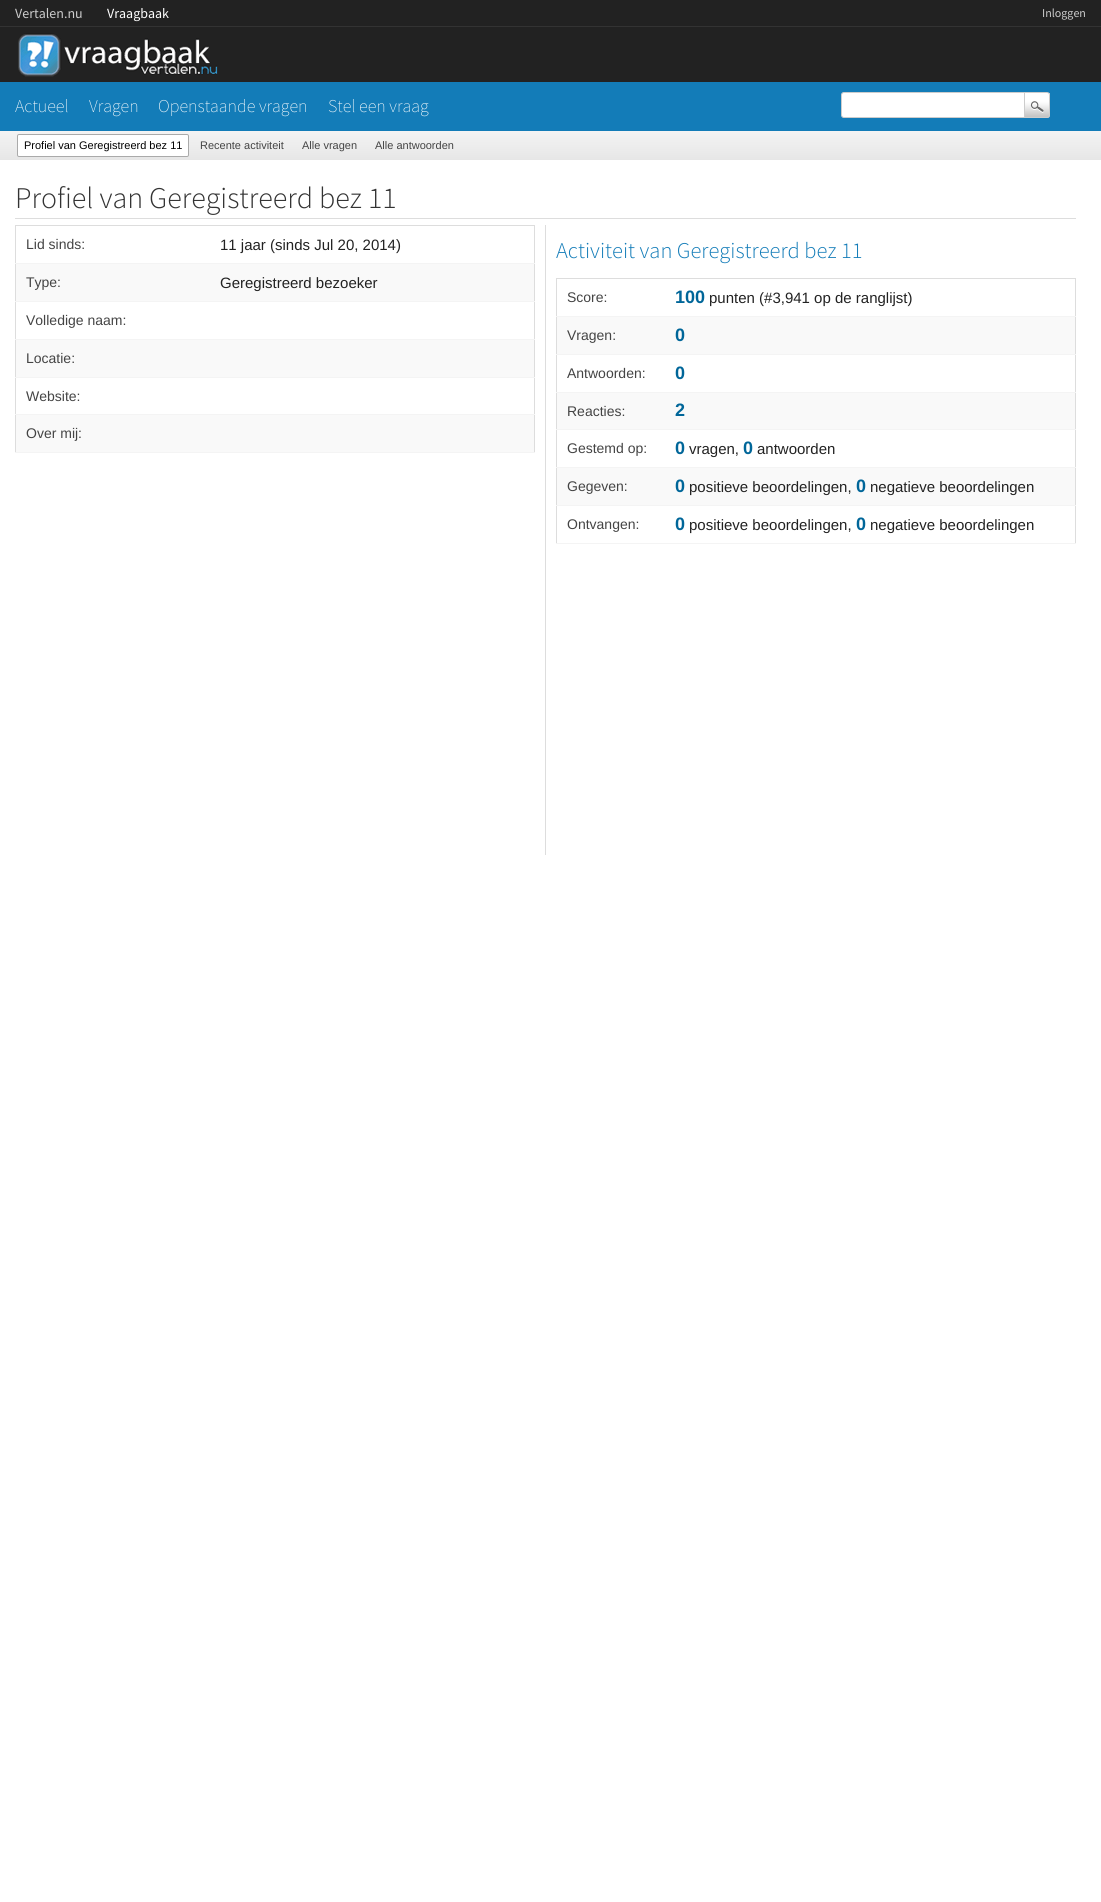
#include <cairo.h>
#include <math.h>
#include <stddef.h>


static void rgb(cairo_t *cr, int r, int g, int b)
{
	cairo_set_source_rgb(cr, r / 255.0, g / 255.0, b / 255.0);
}

static void face(cairo_t *cr, const char *family, double size, int italic, int bold)
{
	cairo_select_font_face(cr, family, italic ? CAIRO_FONT_SLANT_ITALIC : CAIRO_FONT_SLANT_NORMAL,
		bold ? CAIRO_FONT_WEIGHT_BOLD : CAIRO_FONT_WEIGHT_NORMAL);
	cairo_set_font_size(cr, size);
}

static void label(cairo_t *cr, double x, double y, const char *s)
{
	cairo_move_to(cr, x, y);
	cairo_show_text(cr, s);
}

static void rect(cairo_t *cr, double x, double y, double w, double h)
{
	cairo_rectangle(cr, x, y, w, h);
	cairo_fill(cr);
}

static void rrect(cairo_t *cr, double x, double y, double w, double h, double r)
{
	cairo_new_sub_path(cr);
	cairo_arc(cr, x + w - r, y + h - r, r, 0, M_PI / 2);
	cairo_arc(cr, x + r, y + h - r, r, M_PI / 2, M_PI);
	cairo_arc(cr, x + r, y + r, r, M_PI, 1.5 * M_PI);
	cairo_arc(cr, x + w - r, y + r, r, 1.5 * M_PI, 2 * M_PI);
	cairo_close_path(cr);
}

static void image(cairo_t *cr, const char *path, double x, double y, double w, double h)
{
	cairo_surface_t *image = cairo_image_surface_create_from_png(path);
	cairo_save(cr);
	cairo_set_source_surface(cr, image, x, y);
	cairo_rectangle(cr, x, y, w, h);
	cairo_fill(cr);
	cairo_restore(cr);
	cairo_surface_destroy(image);
}

static void draw(cairo_t *cr) {
	cairo_pattern_t *gradient;
	rgb(cr, 255, 255, 255);
	cairo_paint(cr);
	rgb(cr, 34, 34, 34);
	rect(cr, 0, 0, 1101, 82);
	rgb(cr, 51, 51, 51);
	rect(cr, 0, 26, 1101, 1);
	face(cr, "Source Sans Pro", 14, 0, 0);
	rgb(cr, 204, 204, 204);
	label(cr, 15, 18, "Vertalen.nu");
	rgb(cr, 255, 255, 255);
	label(cr, 107, 18, "Vraagbaak");
	face(cr, "Source Sans Pro", 12, 0, 0);
	rgb(cr, 204, 204, 204);
	label(cr, 1042, 17, "Inloggen");
	image(cr, "image0.png", 18, 33, 200, 44);
	rgb(cr, 19, 124, 184);
	rect(cr, 0, 82, 1101, 49);
	face(cr, "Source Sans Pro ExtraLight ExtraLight", 18, 0, 0);
	rgb(cr, 255, 255, 255);
	label(cr, 15, 112, "Actueel");
	label(cr, 89, 112, "Vragen");
	label(cr, 158, 112, "Openstaande vragen");
	label(cr, 328, 112, "Stel een vraag");
	cairo_new_path(cr);
	cairo_move_to(cr, 844, 92.5);
	cairo_line_to(cr, 1024.5, 92.5);
	cairo_line_to(cr, 1024.5, 117.5);
	cairo_line_to(cr, 844, 117.5);
	cairo_curve_to(cr, 842.5, 117.5, 841.5, 116.5, 841.5, 115);
	cairo_line_to(cr, 841.5, 95);
	cairo_curve_to(cr, 841.5, 93.5, 842.5, 92.5, 844, 92.5);
	cairo_close_path(cr);
	cairo_fill_preserve(cr);
	rgb(cr, 204, 204, 204);
	cairo_set_line_width(cr, 1);
	cairo_stroke(cr);
	image(cr, "image1.png", 1025, 93, 25, 25);
	cairo_new_path(cr);
	cairo_move_to(cr, 1024.5, 92.5);
	cairo_line_to(cr, 1047, 92.5);
	cairo_curve_to(cr, 1048.5, 92.5, 1049.5, 93.5, 1049.5, 95);
	cairo_line_to(cr, 1049.5, 115);
	cairo_curve_to(cr, 1049.5, 116.5, 1048.5, 117.5, 1047, 117.5);
	cairo_line_to(cr, 1024.5, 117.5);
	cairo_close_path(cr);
	cairo_stroke(cr);
	gradient = cairo_pattern_create_linear(551, 131, 551, 160);
	cairo_pattern_add_color_stop_rgba(gradient, 0, 0.957, 0.957, 0.957, 1);
	cairo_pattern_add_color_stop_rgba(gradient, 1, 0.902, 0.902, 0.902, 1);
	cairo_set_source(cr, gradient);
	cairo_pattern_destroy(gradient);
	rect(cr, 0, 131, 1101, 29);
	rgb(cr, 255, 255, 255);
	rrect(cr, 17.5, 134.5, 171, 22, 1.5);
	cairo_fill_preserve(cr);
	rgb(cr, 170, 170, 170);
	cairo_stroke(cr);
	face(cr, "Liberation Sans", 11, 0, 0);
	rgb(cr, 0, 0, 0);
	label(cr, 24, 149, "Profiel van Geregistreerd bez 11");
	rgb(cr, 68, 68, 68);
	label(cr, 200, 149, "Recente activiteit");
	label(cr, 302, 149, "Alle vragen");
	label(cr, 375, 149, "Alle antwoorden");
	rgb(cr, 221, 221, 221);
	rect(cr, 15, 218, 1061, 1);
	face(cr, "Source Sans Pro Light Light", 30, 0, 0);
	rgb(cr, 51, 51, 51);
	label(cr, 15, 208, "Profiel van Geregistreerd bez 11");
	rgb(cr, 221, 221, 221);
	rect(cr, 545, 225, 1, 630);
	rect(cr, 15, 225, 520, 1);
	rect(cr, 534, 225, 1, 228);
	rect(cr, 15, 225, 1, 228);
	face(cr, "Liberation Sans", 14, 0, 0);
	rgb(cr, 68, 68, 68);
	label(cr, 26, 249, "Lid sinds:");
	rgb(cr, 244, 244, 244);
	rect(cr, 15, 263, 520, 1);
	face(cr, "Liberation Sans", 15, 0, 0);
	rgb(cr, 34, 34, 34);
	label(cr, 220, 250, "11 jaar (sinds Jul 20, 2014)");
	rgb(cr, 249, 249, 249);
	rect(cr, 16, 264, 518, 37);
	face(cr, "Liberation Sans", 14, 0, 0);
	rgb(cr, 68, 68, 68);
	label(cr, 26, 287, "Type:");
	rgb(cr, 244, 244, 244);
	rect(cr, 15, 301, 520, 1);
	face(cr, "Liberation Sans", 15, 0, 0);
	rgb(cr, 34, 34, 34);
	label(cr, 220, 288, "Geregistreerd bezoeker");
	face(cr, "Liberation Sans", 14, 0, 0);
	rgb(cr, 68, 68, 68);
	label(cr, 26, 325, "Volledige naam:");
	rgb(cr, 244, 244, 244);
	rect(cr, 15, 339, 520, 1);
	rgb(cr, 249, 249, 249);
	rect(cr, 16, 340, 518, 37);
	rgb(cr, 68, 68, 68);
	label(cr, 26, 363, "Locatie:");
	rgb(cr, 244, 244, 244);
	rect(cr, 15, 377, 520, 1);
	rgb(cr, 68, 68, 68);
	label(cr, 26, 401, "Website:");
	rgb(cr, 244, 244, 244);
	rect(cr, 15, 414, 520, 1);
	rgb(cr, 249, 249, 249);
	rect(cr, 16, 415, 518, 37);
	rgb(cr, 68, 68, 68);
	label(cr, 26, 438, "Over mij:");
	rgb(cr, 244, 244, 244);
	rect(cr, 15, 452, 520, 1);
	face(cr, "Source Sans Pro Light Light", 22.5, 0, 0);
	rgb(cr, 19, 124, 184);
	label(cr, 556, 258, "Activiteit van Geregistreerd bez 11");
	rgb(cr, 221, 221, 221);
	rect(cr, 556, 278, 520, 1);
	rect(cr, 1075, 278, 1, 266);
	rect(cr, 556, 278, 1, 266);
	face(cr, "Liberation Sans", 14, 0, 0);
	rgb(cr, 68, 68, 68);
	label(cr, 567, 302, "Score:");
	rgb(cr, 244, 244, 244);
	rect(cr, 556, 316, 520, 1);
	face(cr, "Liberation Sans", 18, 0, 1);
	rgb(cr, 0, 102, 153);
	label(cr, 675, 303, "100");
	face(cr, "Liberation Sans", 15, 0, 0);
	rgb(cr, 34, 34, 34);
	label(cr, 709, 303, "punten (#3,941 op de ranglijst)");
	rgb(cr, 249, 249, 249);
	rect(cr, 557, 317, 518, 37);
	face(cr, "Liberation Sans", 14, 0, 0);
	rgb(cr, 68, 68, 68);
	label(cr, 567, 340, "Vragen:");
	rgb(cr, 244, 244, 244);
	rect(cr, 556, 354, 520, 1);
	face(cr, "Liberation Sans", 18, 0, 1);
	rgb(cr, 0, 102, 153);
	label(cr, 675, 341, "0");
	face(cr, "Liberation Sans", 14, 0, 0);
	rgb(cr, 68, 68, 68);
	label(cr, 567, 378, "Antwoorden:");
	rgb(cr, 244, 244, 244);
	rect(cr, 556, 392, 520, 1);
	face(cr, "Liberation Sans", 18, 0, 1);
	rgb(cr, 0, 102, 153);
	label(cr, 675, 379, "0");
	rgb(cr, 249, 249, 249);
	rect(cr, 557, 393, 518, 36);
	face(cr, "Liberation Sans", 14, 0, 0);
	rgb(cr, 68, 68, 68);
	label(cr, 567, 416, "Reacties:");
	rgb(cr, 244, 244, 244);
	rect(cr, 556, 429, 520, 1);
	face(cr, "Liberation Sans", 18, 0, 1);
	rgb(cr, 0, 102, 153);
	label(cr, 675, 416, "2");
	face(cr, "Liberation Sans", 14, 0, 0);
	rgb(cr, 68, 68, 68);
	label(cr, 567, 453, "Gestemd op:");
	rgb(cr, 244, 244, 244);
	rect(cr, 556, 467, 520, 1);
	face(cr, "Liberation Sans", 18, 0, 1);
	rgb(cr, 0, 102, 153);
	label(cr, 675, 454, "0");
	face(cr, "Liberation Sans", 15, 0, 0);
	rgb(cr, 34, 34, 34);
	label(cr, 689, 454, "vragen,");
	face(cr, "Liberation Sans", 18, 0, 1);
	rgb(cr, 0, 102, 153);
	label(cr, 743, 454, "0");
	face(cr, "Liberation Sans", 15, 0, 0);
	rgb(cr, 34, 34, 34);
	label(cr, 757, 454, "antwoorden");
	rgb(cr, 249, 249, 249);
	rect(cr, 557, 468, 518, 37);
	face(cr, "Liberation Sans", 14, 0, 0);
	rgb(cr, 68, 68, 68);
	label(cr, 567, 491, "Gegeven:");
	rgb(cr, 244, 244, 244);
	rect(cr, 556, 505, 520, 1);
	face(cr, "Liberation Sans", 18, 0, 1);
	rgb(cr, 0, 102, 153);
	label(cr, 675, 492, "0");
	face(cr, "Liberation Sans", 15, 0, 0);
	rgb(cr, 34, 34, 34);
	label(cr, 689, 492, "positieve beoordelingen,");
	face(cr, "Liberation Sans", 18, 0, 1);
	rgb(cr, 0, 102, 153);
	label(cr, 856, 492, "0");
	face(cr, "Liberation Sans", 15, 0, 0);
	rgb(cr, 34, 34, 34);
	label(cr, 870, 492, "negatieve beoordelingen");
	face(cr, "Liberation Sans", 14, 0, 0);
	rgb(cr, 68, 68, 68);
	label(cr, 567, 529, "Ontvangen:");
	rgb(cr, 244, 244, 244);
	rect(cr, 556, 543, 520, 1);
	face(cr, "Liberation Sans", 18, 0, 1);
	rgb(cr, 0, 102, 153);
	label(cr, 675, 530, "0");
	face(cr, "Liberation Sans", 15, 0, 0);
	rgb(cr, 34, 34, 34);
	label(cr, 689, 530, "positieve beoordelingen,");
	face(cr, "Liberation Sans", 18, 0, 1);
	rgb(cr, 0, 102, 153);
	label(cr, 856, 530, "0");
	face(cr, "Liberation Sans", 15, 0, 0);
	rgb(cr, 34, 34, 34);
	label(cr, 870, 530, "negatieve beoordelingen");
}

int main(void) {
	cairo_surface_t *surface = cairo_image_surface_create(CAIRO_FORMAT_RGB24, 1101, 1902);
	cairo_t *cr = cairo_create(surface);
	cairo_font_options_t *options = cairo_font_options_create();
	cairo_font_options_set_hint_metrics(options, CAIRO_HINT_METRICS_OFF);
	cairo_font_options_set_hint_style(options, CAIRO_HINT_STYLE_NONE);
	cairo_set_font_options(cr, options);
	cairo_set_miter_limit(cr, 4);
	draw(cr);
	cairo_surface_write_to_png(surface, "render.png");
	cairo_font_options_destroy(options);
	cairo_destroy(cr);
	cairo_surface_destroy(surface);
	return 0;
}
